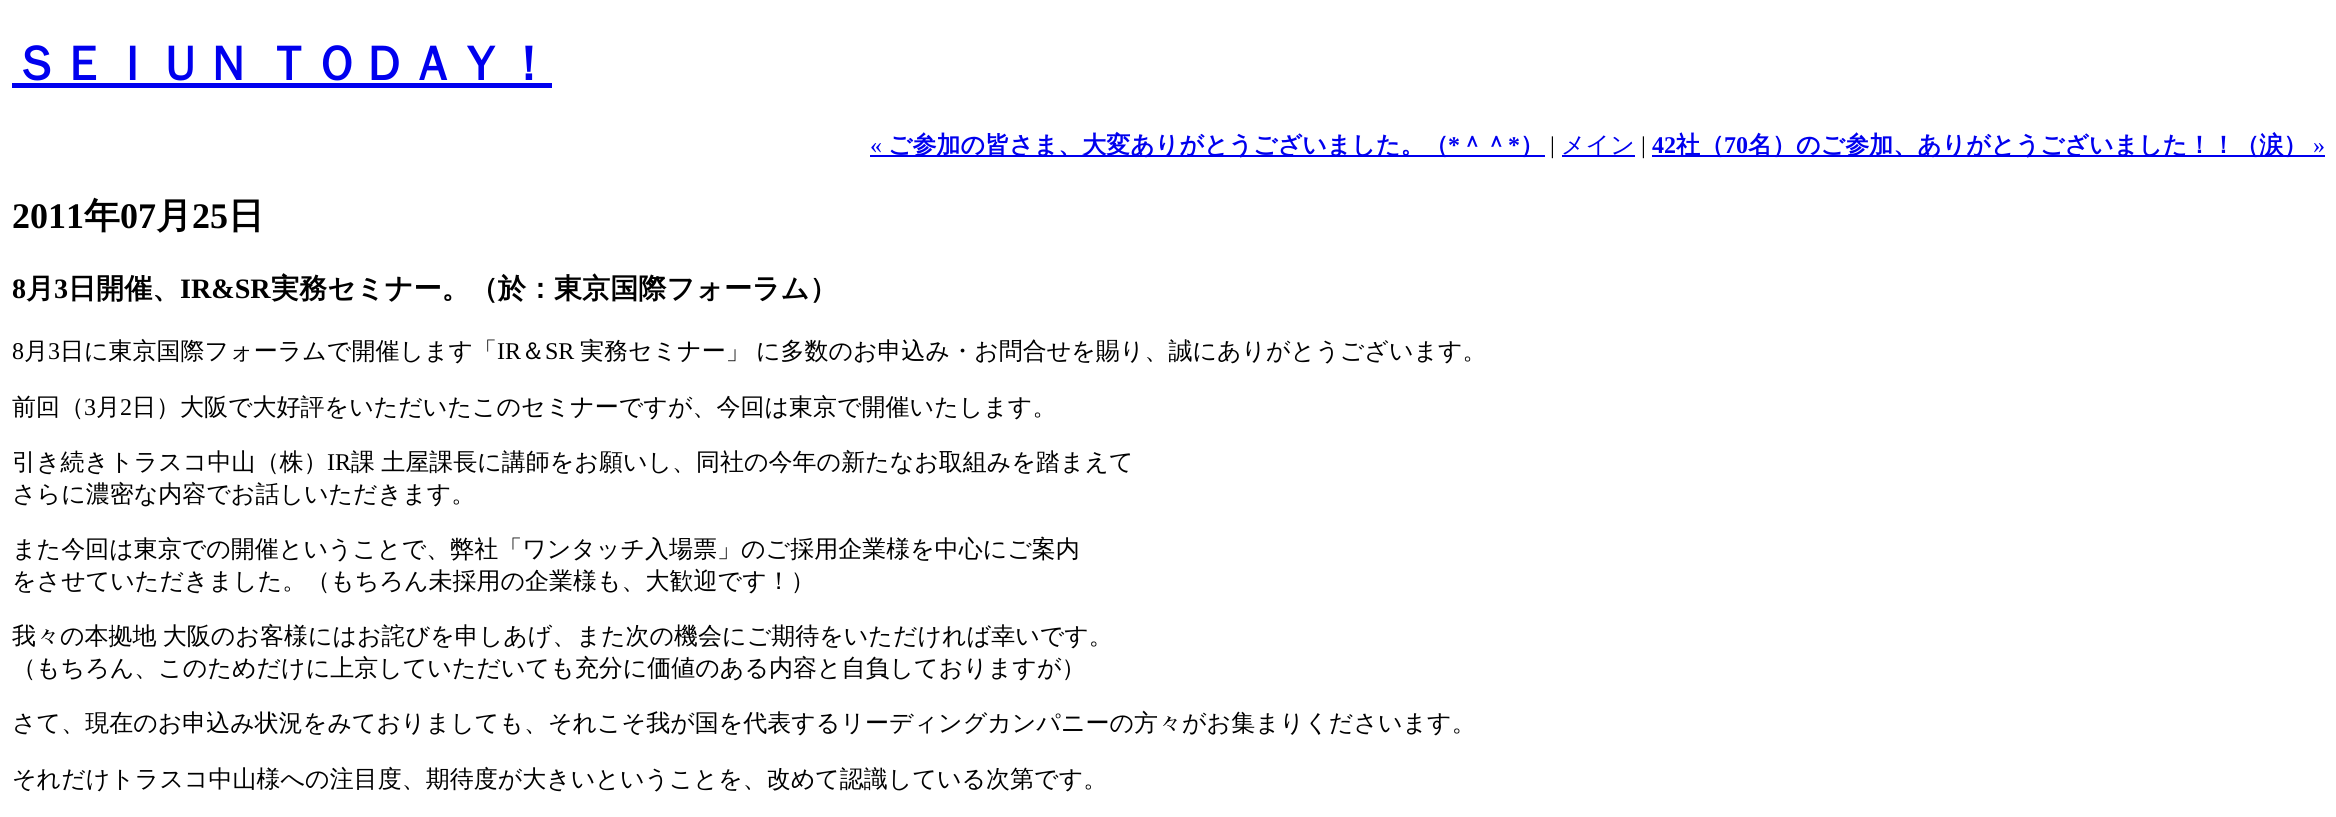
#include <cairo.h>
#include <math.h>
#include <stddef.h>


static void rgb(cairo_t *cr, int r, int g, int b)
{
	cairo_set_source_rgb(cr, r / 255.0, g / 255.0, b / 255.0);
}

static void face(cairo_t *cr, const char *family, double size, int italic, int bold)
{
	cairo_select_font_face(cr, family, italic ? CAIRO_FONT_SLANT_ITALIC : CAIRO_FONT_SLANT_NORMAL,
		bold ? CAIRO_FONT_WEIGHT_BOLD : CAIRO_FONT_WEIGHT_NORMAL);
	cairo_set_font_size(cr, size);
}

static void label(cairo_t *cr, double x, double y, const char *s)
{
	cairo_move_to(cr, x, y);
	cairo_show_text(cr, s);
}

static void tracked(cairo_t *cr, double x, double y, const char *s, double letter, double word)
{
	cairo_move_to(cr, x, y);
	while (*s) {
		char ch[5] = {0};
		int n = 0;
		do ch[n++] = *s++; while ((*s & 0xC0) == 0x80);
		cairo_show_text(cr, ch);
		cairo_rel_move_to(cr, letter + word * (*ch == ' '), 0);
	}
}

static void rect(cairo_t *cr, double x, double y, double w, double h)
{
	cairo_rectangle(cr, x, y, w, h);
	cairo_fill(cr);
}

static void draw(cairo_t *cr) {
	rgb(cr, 255, 255, 255);
	cairo_paint(cr);
	face(cr, "WenQuanYi Zen Hei", 48, 0, 1);
	rgb(cr, 0, 0, 238);
	tracked(cr, 12, 80, "ＳＥＩＵＮ ＴＯＤＡＹ！", 0, -2);
	rect(cr, 12, 83, 540, 5);
	face(cr, "Liberation Serif", 24, 0, 0);
	label(cr, 870, 153, "«");
	rect(cr, 870, 155, 675, 2);
	face(cr, "WenQuanYi Zen Hei", 24, 0, 1);
	label(cr, 888, 153, "ご参加の皆さま、大変ありがとうございました。（");
	face(cr, "Liberation Serif", 24, 0, 1);
	label(cr, 1448, 153, "*");
	face(cr, "WenQuanYi Zen Hei", 24, 0, 1);
	label(cr, 1460, 153, "＾＾");
	face(cr, "Liberation Serif", 24, 0, 1);
	label(cr, 1508, 153, "*");
	face(cr, "WenQuanYi Zen Hei", 24, 0, 1);
	label(cr, 1520, 153, "）");
	face(cr, "Liberation Serif", 24, 0, 0);
	rgb(cr, 0, 0, 0);
	label(cr, 1550, 153, "|");
	rgb(cr, 0, 0, 238);
	rect(cr, 1562, 155, 73, 2);
	face(cr, "WenQuanYi Zen Hei Medium", 24, 0, 0);
	label(cr, 1561, 153, "メイン");
	face(cr, "Liberation Serif", 24, 0, 0);
	rgb(cr, 0, 0, 0);
	label(cr, 1641, 153, "|");
	face(cr, "Liberation Serif", 24, 0, 1);
	rgb(cr, 0, 0, 238);
	label(cr, 1652, 153, "42");
	rect(cr, 1652, 155, 673, 2);
	face(cr, "WenQuanYi Zen Hei", 24, 0, 1);
	label(cr, 1676, 153, "社（");
	face(cr, "Liberation Serif", 24, 0, 1);
	label(cr, 1724, 153, "70");
	face(cr, "WenQuanYi Zen Hei", 24, 0, 1);
	label(cr, 1748, 153, "名）のご参加、ありがとうございました！！（涙）");
	face(cr, "Liberation Serif", 24, 0, 0);
	label(cr, 2313, 153, "»");
	face(cr, "Liberation Serif", 36, 0, 1);
	rgb(cr, 0, 0, 0);
	label(cr, 12, 228, "2011");
	face(cr, "WenQuanYi Zen Hei", 36, 0, 1);
	label(cr, 84, 228, "年");
	face(cr, "Liberation Serif", 36, 0, 1);
	label(cr, 120, 228, "07");
	face(cr, "WenQuanYi Zen Hei", 36, 0, 1);
	label(cr, 156, 228, "月");
	face(cr, "Liberation Serif", 36, 0, 1);
	label(cr, 192, 228, "25");
	face(cr, "WenQuanYi Zen Hei", 36, 0, 1);
	label(cr, 228, 228, "日");
	face(cr, "Liberation Serif", 28.1, 0, 1);
	label(cr, 12, 298, "8");
	face(cr, "WenQuanYi Zen Hei", 28.1, 0, 1);
	label(cr, 26, 298, "月");
	face(cr, "Liberation Serif", 28.1, 0, 1);
	label(cr, 54, 298, "3");
	face(cr, "WenQuanYi Zen Hei", 28.1, 0, 1);
	label(cr, 68, 298, "日開催、");
	face(cr, "Liberation Serif", 28.1, 0, 1);
	label(cr, 180, 298, "IR&SR");
	face(cr, "WenQuanYi Zen Hei", 28.1, 0, 1);
	label(cr, 271, 298, "実務セミナー。（於：東京国際フォーラム）");
	face(cr, "Liberation Serif", 24, 0, 0);
	label(cr, 12, 359, "8");
	face(cr, "WenQuanYi Zen Hei Medium", 24, 0, 0);
	label(cr, 24, 359, "月");
	face(cr, "Liberation Serif", 24, 0, 0);
	label(cr, 48, 359, "3");
	face(cr, "WenQuanYi Zen Hei Medium", 24, 0, 0);
	label(cr, 60, 359, "日に東京国際フォーラムで開催します「");
	face(cr, "Liberation Serif", 24, 0, 0);
	label(cr, 497, 359, "IR");
	face(cr, "WenQuanYi Zen Hei Medium", 24, 0, 0);
	label(cr, 521, 359, "＆");
	face(cr, "Liberation Serif", 24, 0, 0);
	label(cr, 545, 359, "SR");
	face(cr, "WenQuanYi Zen Hei Medium", 24, 0, 0);
	tracked(cr, 580, 359, "実務セミナー」 に多数のお申込み・お問合せを賜り、誠にありがとうございます。", 0, -1);
	label(cr, 12, 415, "前回（");
	face(cr, "Liberation Serif", 24, 0, 0);
	label(cr, 84, 415, "3");
	face(cr, "WenQuanYi Zen Hei Medium", 24, 0, 0);
	label(cr, 96, 415, "月");
	face(cr, "Liberation Serif", 24, 0, 0);
	label(cr, 120, 415, "2");
	face(cr, "WenQuanYi Zen Hei Medium", 24, 0, 0);
	label(cr, 132, 415, "日）大阪で大好評をいただいたこのセミナーですが、今回は東京で開催いたします。");
	label(cr, 12, 470, "引き続きトラスコ中山（株）");
	face(cr, "Liberation Serif", 24, 0, 0);
	label(cr, 327, 470, "IR");
	face(cr, "WenQuanYi Zen Hei Medium", 24, 0, 0);
	tracked(cr, 351, 470, "課 土屋課長に講師をお願いし、同社の今年の新たなお取組みを踏まえて", 0, -1);
	label(cr, 12, 502, "さらに濃密な内容でお話しいただきます。");
	label(cr, 12, 557, "また今回は東京での開催ということで、弊社「ワンタッチ入場票」のご採用企業様を中心にご案内");
	label(cr, 12, 589, "をさせていただきました。（もちろん未採用の企業様も、大歓迎です！）");
	tracked(cr, 12, 644, "我々の本拠地 大阪のお客様にはお詫びを申しあげ、また次の機会にご期待をいただければ幸いです。", 0, -1);
	label(cr, 12, 676, "（もちろん、このためだけに上京していただいても充分に価値のある内容と自負しておりますが）");
	label(cr, 12, 731, "さて、現在のお申込み状況をみておりましても、それこそ我が国を代表するリーディングカンパニーの方々がお集まりくださいます。");
	label(cr, 12, 787, "それだけトラスコ中山様への注目度、期待度が大きいということを、改めて認識している次第です。");
}

int main(void) {
	cairo_surface_t *surface = cairo_image_surface_create(CAIRO_FORMAT_RGB24, 2336, 817);
	cairo_t *cr = cairo_create(surface);
	cairo_font_options_t *options = cairo_font_options_create();
	cairo_font_options_set_hint_metrics(options, CAIRO_HINT_METRICS_OFF);
	cairo_font_options_set_hint_style(options, CAIRO_HINT_STYLE_NONE);
	cairo_set_font_options(cr, options);
	cairo_set_miter_limit(cr, 4);
	draw(cr);
	cairo_surface_write_to_png(surface, "render.png");
	cairo_font_options_destroy(options);
	cairo_destroy(cr);
	cairo_surface_destroy(surface);
	return 0;
}
